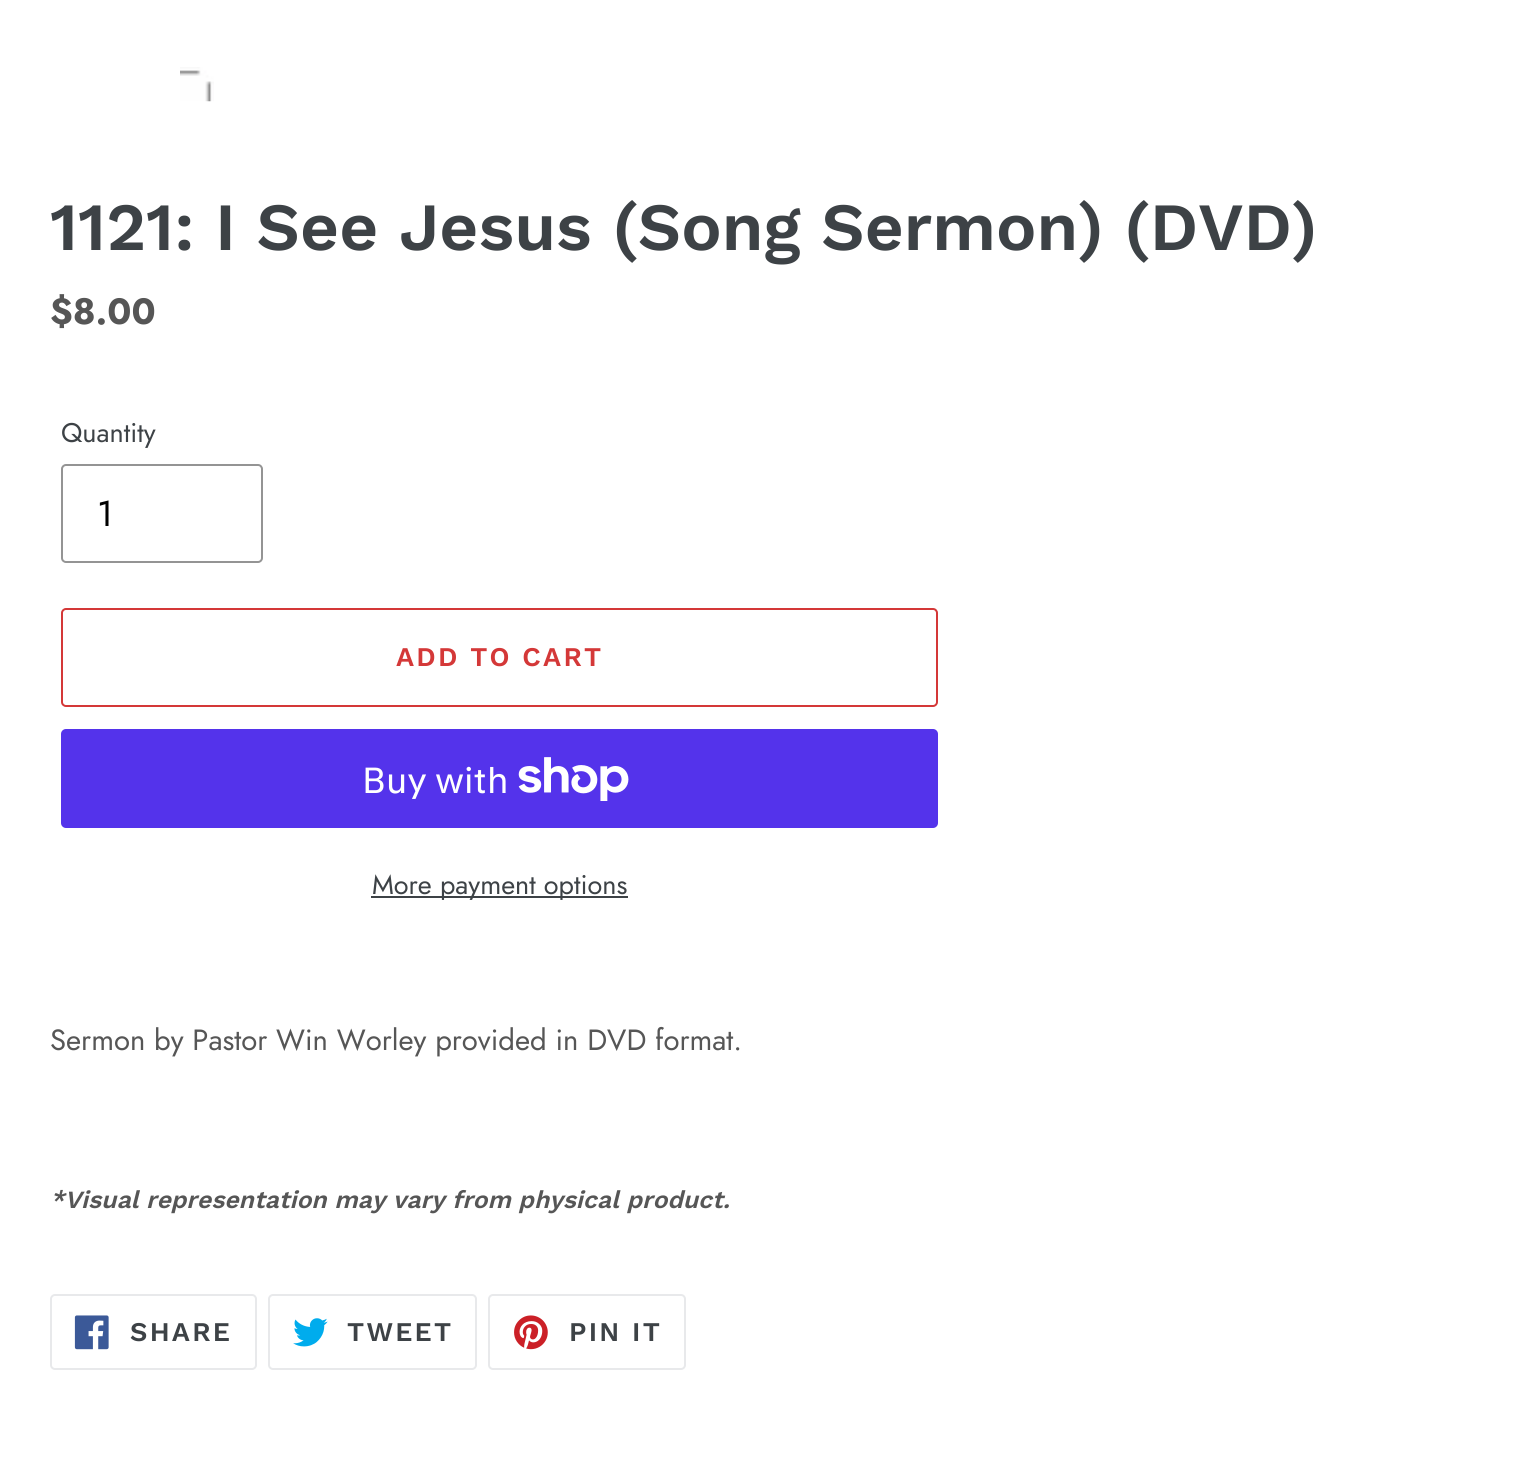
#include <cairo.h>
#include <math.h>
#include <stddef.h>


static void rgb(cairo_t *cr, int r, int g, int b)
{
	cairo_set_source_rgb(cr, r / 255.0, g / 255.0, b / 255.0);
}

static void face(cairo_t *cr, const char *family, double size, int italic, int bold)
{
	cairo_select_font_face(cr, family, italic ? CAIRO_FONT_SLANT_ITALIC : CAIRO_FONT_SLANT_NORMAL,
		bold ? CAIRO_FONT_WEIGHT_BOLD : CAIRO_FONT_WEIGHT_NORMAL);
	cairo_set_font_size(cr, size);
}

static void label(cairo_t *cr, double x, double y, const char *s)
{
	cairo_move_to(cr, x, y);
	cairo_show_text(cr, s);
}

static void tracked(cairo_t *cr, double x, double y, const char *s, double letter, double word)
{
	cairo_move_to(cr, x, y);
	while (*s) {
		char ch[5] = {0};
		int n = 0;
		do ch[n++] = *s++; while ((*s & 0xC0) == 0x80);
		cairo_show_text(cr, ch);
		cairo_rel_move_to(cr, letter + word * (*ch == ' '), 0);
	}
}

static void rect(cairo_t *cr, double x, double y, double w, double h)
{
	cairo_rectangle(cr, x, y, w, h);
	cairo_fill(cr);
}

static void rrect(cairo_t *cr, double x, double y, double w, double h, double r)
{
	cairo_new_sub_path(cr);
	cairo_arc(cr, x + w - r, y + h - r, r, 0, M_PI / 2);
	cairo_arc(cr, x + r, y + h - r, r, M_PI / 2, M_PI);
	cairo_arc(cr, x + r, y + r, r, M_PI, 1.5 * M_PI);
	cairo_arc(cr, x + w - r, y + r, r, 1.5 * M_PI, 2 * M_PI);
	cairo_close_path(cr);
}

static void image(cairo_t *cr, const char *path, double x, double y, double w, double h)
{
	cairo_surface_t *image = cairo_image_surface_create_from_png(path);
	cairo_save(cr);
	cairo_set_source_surface(cr, image, x, y);
	cairo_rectangle(cr, x, y, w, h);
	cairo_fill(cr);
	cairo_restore(cr);
	cairo_surface_destroy(image);
}

static void draw(cairo_t *cr) {
	rgb(cr, 255, 255, 255);
	cairo_paint(cr);
	image(cr, "image0.png", 180, 67, 34, 35);
	face(cr, "Work Sans SemiBold", 67.5, 0, 0);
	rgb(cr, 61, 66, 70);
	label(cr, 50, 250, "1121: I See Jesus (Song Sermon) (DVD)");
	face(cr, "Jost", 36.5, 0, 1);
	rgb(cr, 86, 86, 86);
	label(cr, 50, 324, "$8.00");
	face(cr, "Jost", 27, 0, 0);
	rgb(cr, 61, 66, 70);
	label(cr, 61, 442, "Quantity");
	rrect(cr, 62, 465, 200, 97, 4);
	rgb(cr, 148, 148, 148);
	cairo_stroke(cr);
	face(cr, "Jost", 36, 0, 0);
	rgb(cr, 0, 0, 0);
	label(cr, 97, 526, "1");
	rrect(cr, 62, 609, 875, 97, 4);
	rgb(cr, 212, 56, 56);
	cairo_stroke(cr);
	face(cr, "Work Sans SemiBold", 27, 0, 0);
	tracked(cr, 396, 666, "ADD TO CART", 2.25, 0);
	rgb(cr, 84, 51, 235);
	rrect(cr, 61, 729, 877, 99, 5);
	cairo_fill(cr);
	face(cr, "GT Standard", 36, 0, 0);
	rgb(cr, 255, 255, 255);
	label(cr, 362, 793, "Buy with");
	image(cr, "image1.png", 518, 757, 111, 44);
	rgb(cr, 61, 66, 70);
	rect(cr, 371, 896, 257, 2);
	face(cr, "Jost", 27, 0, 0);
	label(cr, 372, 894, "More payment options");
	face(cr, "Jost", 29.25, 0, 0);
	rgb(cr, 86, 86, 86);
	label(cr, 50, 1050, "Sermon by Pastor Win Worley provided in DVD format.");
	face(cr, "Work Sans SemiBold", 24.75, 1, 0);
	label(cr, 50, 1208, "*Visual representation may vary from physical product.");
	rrect(cr, 51, 1295, 205, 74, 4);
	rgb(cr, 232, 233, 235);
	cairo_stroke(cr);
	image(cr, "image2.png", 74, 1315, 35, 35);
	face(cr, "Work Sans SemiBold", 27, 0, 0);
	rgb(cr, 61, 66, 70);
	tracked(cr, 130, 1341, "SHARE", 2.25, 0);
	rrect(cr, 269, 1295, 207, 74, 4);
	rgb(cr, 232, 233, 235);
	cairo_stroke(cr);
	image(cr, "image3.png", 293, 1318, 35, 29);
	rgb(cr, 61, 66, 70);
	tracked(cr, 347, 1341, "TWEET", 2.25, 0);
	rrect(cr, 489, 1295, 196, 74, 4);
	rgb(cr, 232, 233, 235);
	cairo_stroke(cr);
	image(cr, "image4.png", 514, 1315, 34, 35);
	rgb(cr, 61, 66, 70);
	tracked(cr, 569, 1341, "PIN IT", 2.25, 0);
}

int main(void) {
	cairo_surface_t *surface = cairo_image_surface_create(CAIRO_FORMAT_RGB24, 1534, 1457);
	cairo_t *cr = cairo_create(surface);
	cairo_font_options_t *options = cairo_font_options_create();
	cairo_font_options_set_hint_metrics(options, CAIRO_HINT_METRICS_OFF);
	cairo_font_options_set_hint_style(options, CAIRO_HINT_STYLE_NONE);
	cairo_set_font_options(cr, options);
	cairo_set_miter_limit(cr, 4);
	draw(cr);
	cairo_surface_write_to_png(surface, "render.png");
	cairo_font_options_destroy(options);
	cairo_destroy(cr);
	cairo_surface_destroy(surface);
	return 0;
}
